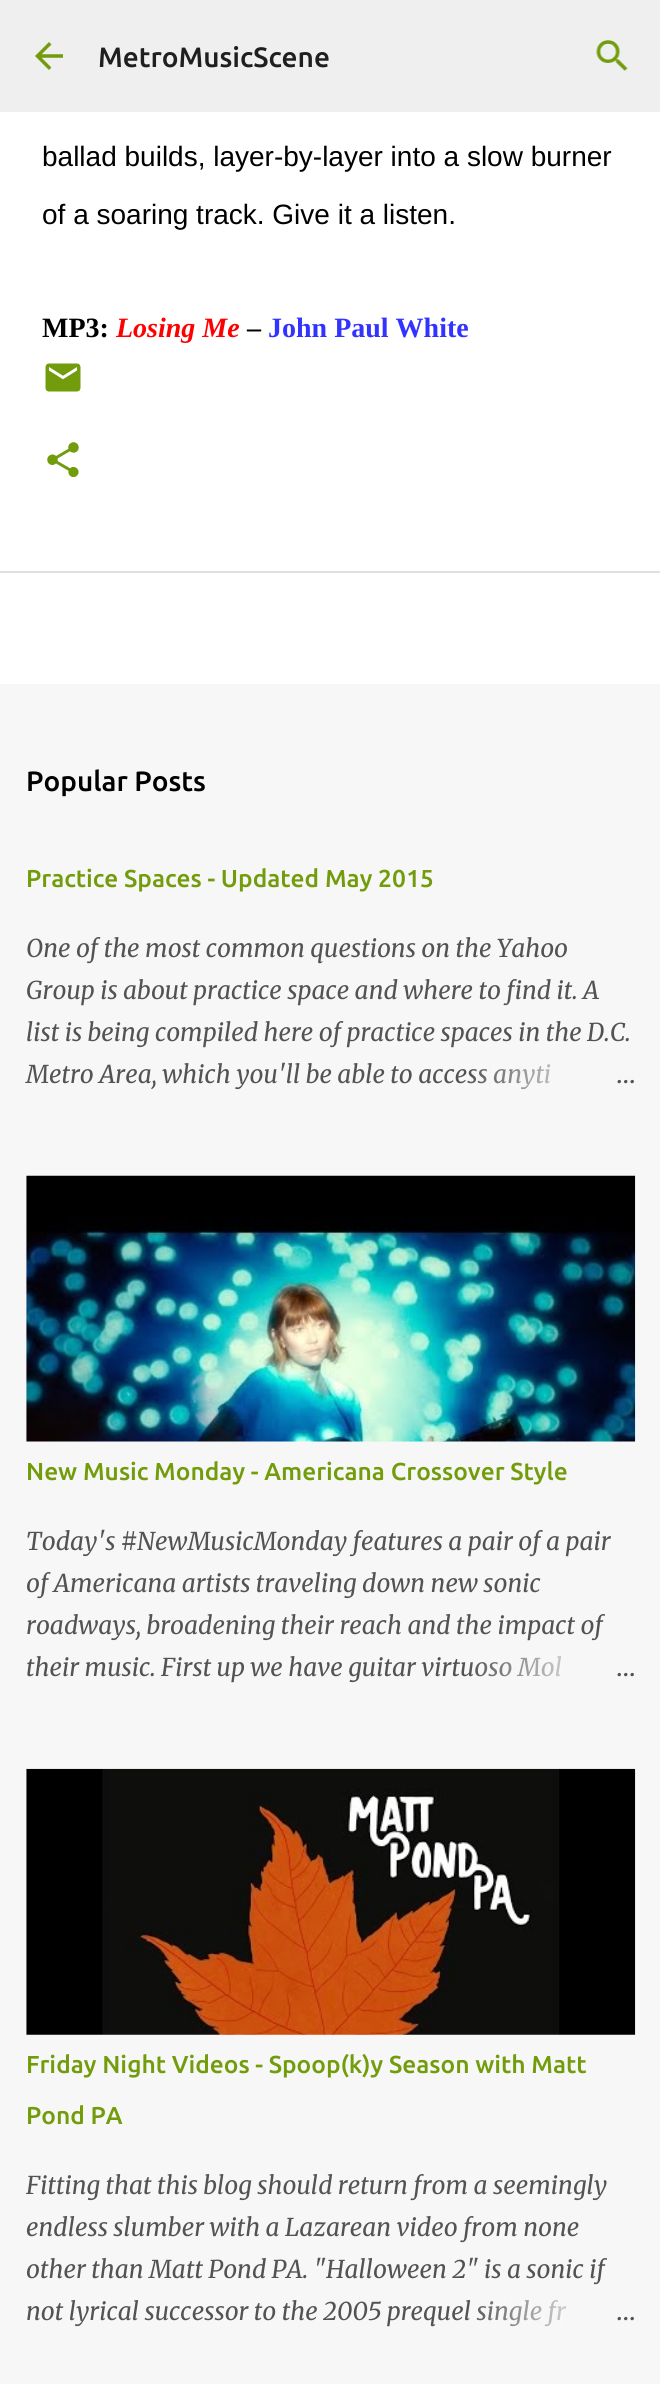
#include <cairo.h>
#include <math.h>
#include <stddef.h>


static void rgb(cairo_t *cr, int r, int g, int b)
{
	cairo_set_source_rgb(cr, r / 255.0, g / 255.0, b / 255.0);
}

static void face(cairo_t *cr, const char *family, double size, int italic, int bold)
{
	cairo_select_font_face(cr, family, italic ? CAIRO_FONT_SLANT_ITALIC : CAIRO_FONT_SLANT_NORMAL,
		bold ? CAIRO_FONT_WEIGHT_BOLD : CAIRO_FONT_WEIGHT_NORMAL);
	cairo_set_font_size(cr, size);
}

static void label(cairo_t *cr, double x, double y, const char *s)
{
	cairo_move_to(cr, x, y);
	cairo_show_text(cr, s);
}

static void rect(cairo_t *cr, double x, double y, double w, double h)
{
	cairo_rectangle(cr, x, y, w, h);
	cairo_fill(cr);
}

static void image(cairo_t *cr, const char *path, double x, double y, double w, double h)
{
	cairo_surface_t *image = cairo_image_surface_create_from_png(path);
	cairo_save(cr);
	cairo_set_source_surface(cr, image, x, y);
	cairo_rectangle(cr, x, y, w, h);
	cairo_fill(cr);
	cairo_restore(cr);
	cairo_surface_destroy(image);
}

static void draw(cairo_t *cr) {
	cairo_pattern_t *gradient;
	rgb(cr, 247, 247, 247);
	cairo_paint(cr);
	rgb(cr, 239, 239, 239);
	rect(cr, 0, 0, 660, 112);
	image(cr, "image0.png", 35, 42, 28, 28);
	face(cr, "Ubuntu Medium", 28, 0, 0);
	rgb(cr, 31, 31, 31);
	label(cr, 98, 67, "MetroMusicScene");
	image(cr, "image1.png", 596, 40, 32, 31);
	rgb(cr, 255, 255, 255);
	rect(cr, 0, 112, 660, 459);
	face(cr, "Liberation Sans", 28, 0, 0);
	rgb(cr, 0, 0, 0);
	label(cr, 42, 166, "ballad builds, layer-by-layer into a slow burner");
	label(cr, 42, 224, "of a soaring track. Give it a listen.");
	face(cr, "Liberation Serif", 28, 0, 1);
	label(cr, 42, 337, "MP3:");
	face(cr, "Liberation Serif", 28, 1, 1);
	rgb(cr, 255, 0, 0);
	label(cr, 116, 337, "Losing Me");
	face(cr, "Liberation Serif", 28, 0, 1);
	rgb(cr, 0, 0, 0);
	label(cr, 247, 337, "–");
	rgb(cr, 51, 51, 255);
	label(cr, 268, 337, "John Paul White");
	image(cr, "image2.png", 45, 363, 36, 29);
	image(cr, "image3.png", 47, 442, 32, 35);
	rgb(cr, 255, 255, 255);
	rect(cr, 0, 573, 660, 111);
	rgb(cr, 224, 224, 224);
	rect(cr, 0, 571, 660, 2);
	face(cr, "Ubuntu Medium", 28, 0, 0);
	rgb(cr, 0, 0, 0);
	label(cr, 26, 791, "Popular Posts");
	face(cr, "Ubuntu Medium", 24.5, 0, 0);
	rgb(cr, 114, 156, 11);
	label(cr, 26, 887, "Practice Spaces - Updated May 2015");
	face(cr, "Merriweather", 24.5, 1, 0);
	rgb(cr, 83, 83, 83);
	label(cr, 26, 957, "One of the most common questions on the Yahoo");
	label(cr, 26, 999, "Group is about practice space and where to find it. A");
	label(cr, 26, 1041, "list is being compiled here of practice spaces in the D.C.");
	label(cr, 26, 1083, "Metro Area, which you'll be able to access anyti");
	gradient = cairo_pattern_create_linear(635, 1075, 467, 1075);
	cairo_pattern_add_color_stop_rgba(gradient, 0, 0.969, 0.969, 0.969, 1);
	cairo_pattern_add_color_stop_rgba(gradient, 0.2, 0.969, 0.969, 0.969, 1);
	cairo_pattern_add_color_stop_rgba(gradient, 1, 0.969, 0.969, 0.969, 0);
	cairo_set_source(cr, gradient);
	cairo_pattern_destroy(gradient);
	rect(cr, 470, 1064, 81, 26);
	face(cr, "Merriweather Light", 24.5, 0, 0);
	rgb(cr, 83, 83, 83);
	label(cr, 616, 1083, "…");
	image(cr, "image4.png", 26, 1175, 610, 267);
	face(cr, "Ubuntu Medium", 24.5, 0, 0);
	rgb(cr, 114, 156, 11);
	label(cr, 26, 1480, "New Music Monday - Americana Crossover Style");
	face(cr, "Merriweather", 24.5, 1, 0);
	rgb(cr, 83, 83, 83);
	label(cr, 26, 1550, "Today's #NewMusicMonday features a pair of a pair");
	label(cr, 26, 1592, "of Americana artists traveling down new sonic");
	label(cr, 26, 1634, "roadways, broadening their reach and the impact of");
	label(cr, 26, 1676, "their music. First up we have guitar virtuoso Mol");
	gradient = cairo_pattern_create_linear(635, 1668, 467, 1668);
	cairo_pattern_add_color_stop_rgba(gradient, 0, 0.969, 0.969, 0.969, 1);
	cairo_pattern_add_color_stop_rgba(gradient, 0.2, 0.969, 0.969, 0.969, 1);
	cairo_pattern_add_color_stop_rgba(gradient, 1, 0.969, 0.969, 0.969, 0);
	cairo_set_source(cr, gradient);
	cairo_pattern_destroy(gradient);
	rect(cr, 470, 1656, 92, 21);
	face(cr, "Merriweather Light", 24.5, 0, 0);
	rgb(cr, 83, 83, 83);
	label(cr, 616, 1676, "…");
	image(cr, "image5.png", 26, 1768, 610, 267);
	face(cr, "Ubuntu Medium", 24.5, 0, 0);
	rgb(cr, 114, 156, 11);
	label(cr, 26, 2073, "Friday Night Videos - Spoop(k)y Season with Matt");
	label(cr, 26, 2124, "Pond PA");
	face(cr, "Merriweather", 24.5, 1, 0);
	rgb(cr, 83, 83, 83);
	label(cr, 26, 2194, "Fitting that this blog should return from a seemingly");
	label(cr, 26, 2236, "endless slumber with a Lazarean video from none");
	label(cr, 26, 2278, "other than Matt Pond PA. \"Halloween 2\" is a sonic if");
	label(cr, 26, 2320, "not lyrical successor to the 2005 prequel single fr");
	gradient = cairo_pattern_create_linear(635, 2312, 467, 2312);
	cairo_pattern_add_color_stop_rgba(gradient, 0, 0.969, 0.969, 0.969, 1);
	cairo_pattern_add_color_stop_rgba(gradient, 0.2, 0.969, 0.969, 0.969, 1);
	cairo_pattern_add_color_stop_rgba(gradient, 1, 0.969, 0.969, 0.969, 0);
	cairo_set_source(cr, gradient);
	cairo_pattern_destroy(gradient);
	rect(cr, 477, 2300, 90, 27);
	face(cr, "Merriweather Light", 24.5, 0, 0);
	rgb(cr, 83, 83, 83);
	label(cr, 616, 2320, "…");
}

int main(void) {
	cairo_surface_t *surface = cairo_image_surface_create(CAIRO_FORMAT_RGB24, 660, 2384);
	cairo_t *cr = cairo_create(surface);
	cairo_font_options_t *options = cairo_font_options_create();
	cairo_font_options_set_hint_metrics(options, CAIRO_HINT_METRICS_OFF);
	cairo_font_options_set_hint_style(options, CAIRO_HINT_STYLE_NONE);
	cairo_set_font_options(cr, options);
	cairo_set_miter_limit(cr, 4);
	draw(cr);
	cairo_surface_write_to_png(surface, "render.png");
	cairo_font_options_destroy(options);
	cairo_destroy(cr);
	cairo_surface_destroy(surface);
	return 0;
}
